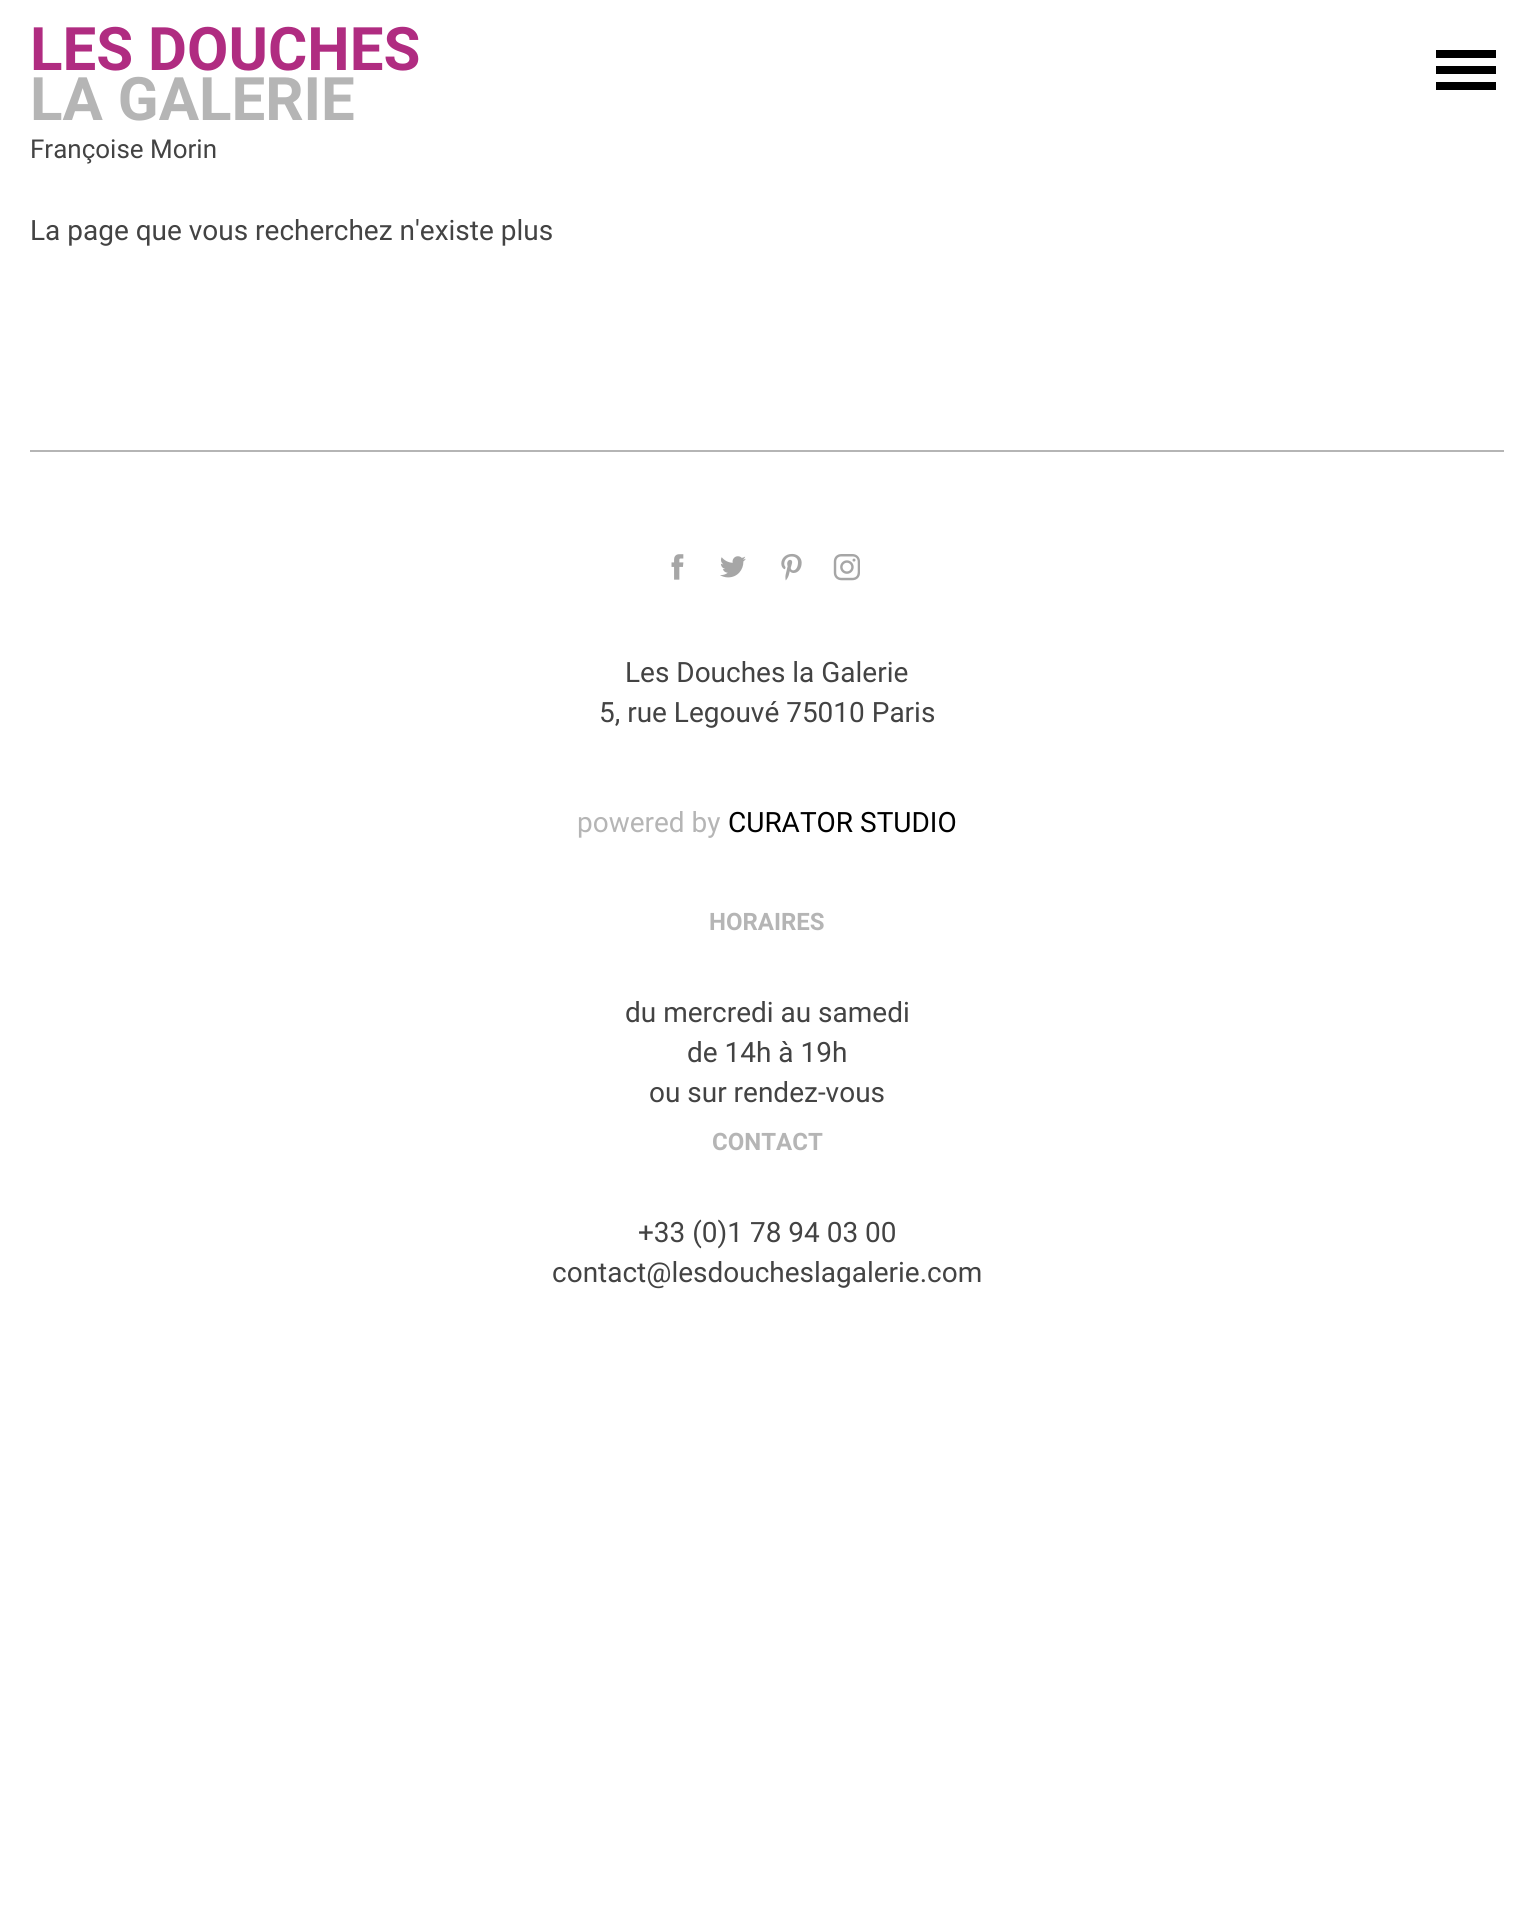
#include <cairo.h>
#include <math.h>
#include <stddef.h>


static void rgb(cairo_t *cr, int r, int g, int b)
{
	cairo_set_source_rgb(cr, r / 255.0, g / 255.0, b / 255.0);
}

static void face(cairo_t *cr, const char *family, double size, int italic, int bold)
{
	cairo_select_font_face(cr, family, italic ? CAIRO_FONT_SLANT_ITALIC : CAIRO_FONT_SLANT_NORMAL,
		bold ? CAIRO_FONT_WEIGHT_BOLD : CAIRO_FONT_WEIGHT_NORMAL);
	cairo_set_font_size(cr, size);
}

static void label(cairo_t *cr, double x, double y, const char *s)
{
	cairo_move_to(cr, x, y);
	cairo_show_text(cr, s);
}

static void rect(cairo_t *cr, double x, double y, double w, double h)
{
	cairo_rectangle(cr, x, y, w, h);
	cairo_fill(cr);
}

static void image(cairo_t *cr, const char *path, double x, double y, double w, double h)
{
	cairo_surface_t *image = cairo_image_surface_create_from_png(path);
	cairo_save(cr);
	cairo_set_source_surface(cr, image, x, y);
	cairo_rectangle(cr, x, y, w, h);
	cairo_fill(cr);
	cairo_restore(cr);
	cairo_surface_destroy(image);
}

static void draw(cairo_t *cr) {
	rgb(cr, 255, 255, 255);
	cairo_paint(cr);
	face(cr, "Roboto", 60, 0, 1);
	rgb(cr, 176, 44, 129);
	label(cr, 30, 70, "LES DOUCHES");
	rgb(cr, 181, 181, 181);
	label(cr, 30, 120, "LA GALERIE");
	face(cr, "Roboto", 26, 0, 0);
	rgb(cr, 67, 67, 67);
	label(cr, 30, 158, "Françoise Morin");
	rgb(cr, 0, 0, 0);
	rect(cr, 1436, 50, 60, 8);
	rect(cr, 1436, 66, 60, 8);
	rect(cr, 1436, 82, 60, 8);
	face(cr, "Roboto", 28, 0, 0);
	rgb(cr, 67, 67, 67);
	label(cr, 30, 240, "La page que vous recherchez n'existe plus");
	rgb(cr, 181, 181, 181);
	rect(cr, 30, 450, 1474, 2);
	image(cr, "image0.png", 671, 554, 13, 26);
	image(cr, "image1.png", 720, 556, 26, 22);
	image(cr, "image2.png", 781, 553, 21, 28);
	image(cr, "image3.png", 833, 554, 27, 27);
	rgb(cr, 67, 67, 67);
	label(cr, 625, 682, "Les Douches la Galerie");
	label(cr, 599, 722, "5, rue Legouvé 75010 Paris");
	rgb(cr, 181, 181, 181);
	label(cr, 577, 832, "powered by");
	rgb(cr, 0, 0, 0);
	label(cr, 728, 832, "CURATOR STUDIO");
	face(cr, "Roboto", 24, 0, 1);
	rgb(cr, 181, 181, 181);
	label(cr, 709, 930, "HORAIRES");
	face(cr, "Roboto", 28, 0, 0);
	rgb(cr, 67, 67, 67);
	label(cr, 625, 1022, "du mercredi au samedi");
	label(cr, 687, 1062, "de 14h à 19h");
	label(cr, 649, 1102, "ou sur rendez-vous");
	face(cr, "Roboto", 24, 0, 1);
	rgb(cr, 181, 181, 181);
	label(cr, 712, 1150, "CONTACT");
	face(cr, "Roboto", 28, 0, 0);
	rgb(cr, 67, 67, 67);
	label(cr, 638, 1242, "+33 (0)1 78 94 03 00");
	label(cr, 552, 1282, "contact@lesdoucheslagalerie.com");
}

int main(void) {
	cairo_surface_t *surface = cairo_image_surface_create(CAIRO_FORMAT_RGB24, 1534, 1913);
	cairo_t *cr = cairo_create(surface);
	cairo_font_options_t *options = cairo_font_options_create();
	cairo_font_options_set_hint_metrics(options, CAIRO_HINT_METRICS_OFF);
	cairo_font_options_set_hint_style(options, CAIRO_HINT_STYLE_NONE);
	cairo_set_font_options(cr, options);
	cairo_set_miter_limit(cr, 4);
	draw(cr);
	cairo_surface_write_to_png(surface, "render.png");
	cairo_font_options_destroy(options);
	cairo_destroy(cr);
	cairo_surface_destroy(surface);
	return 0;
}
